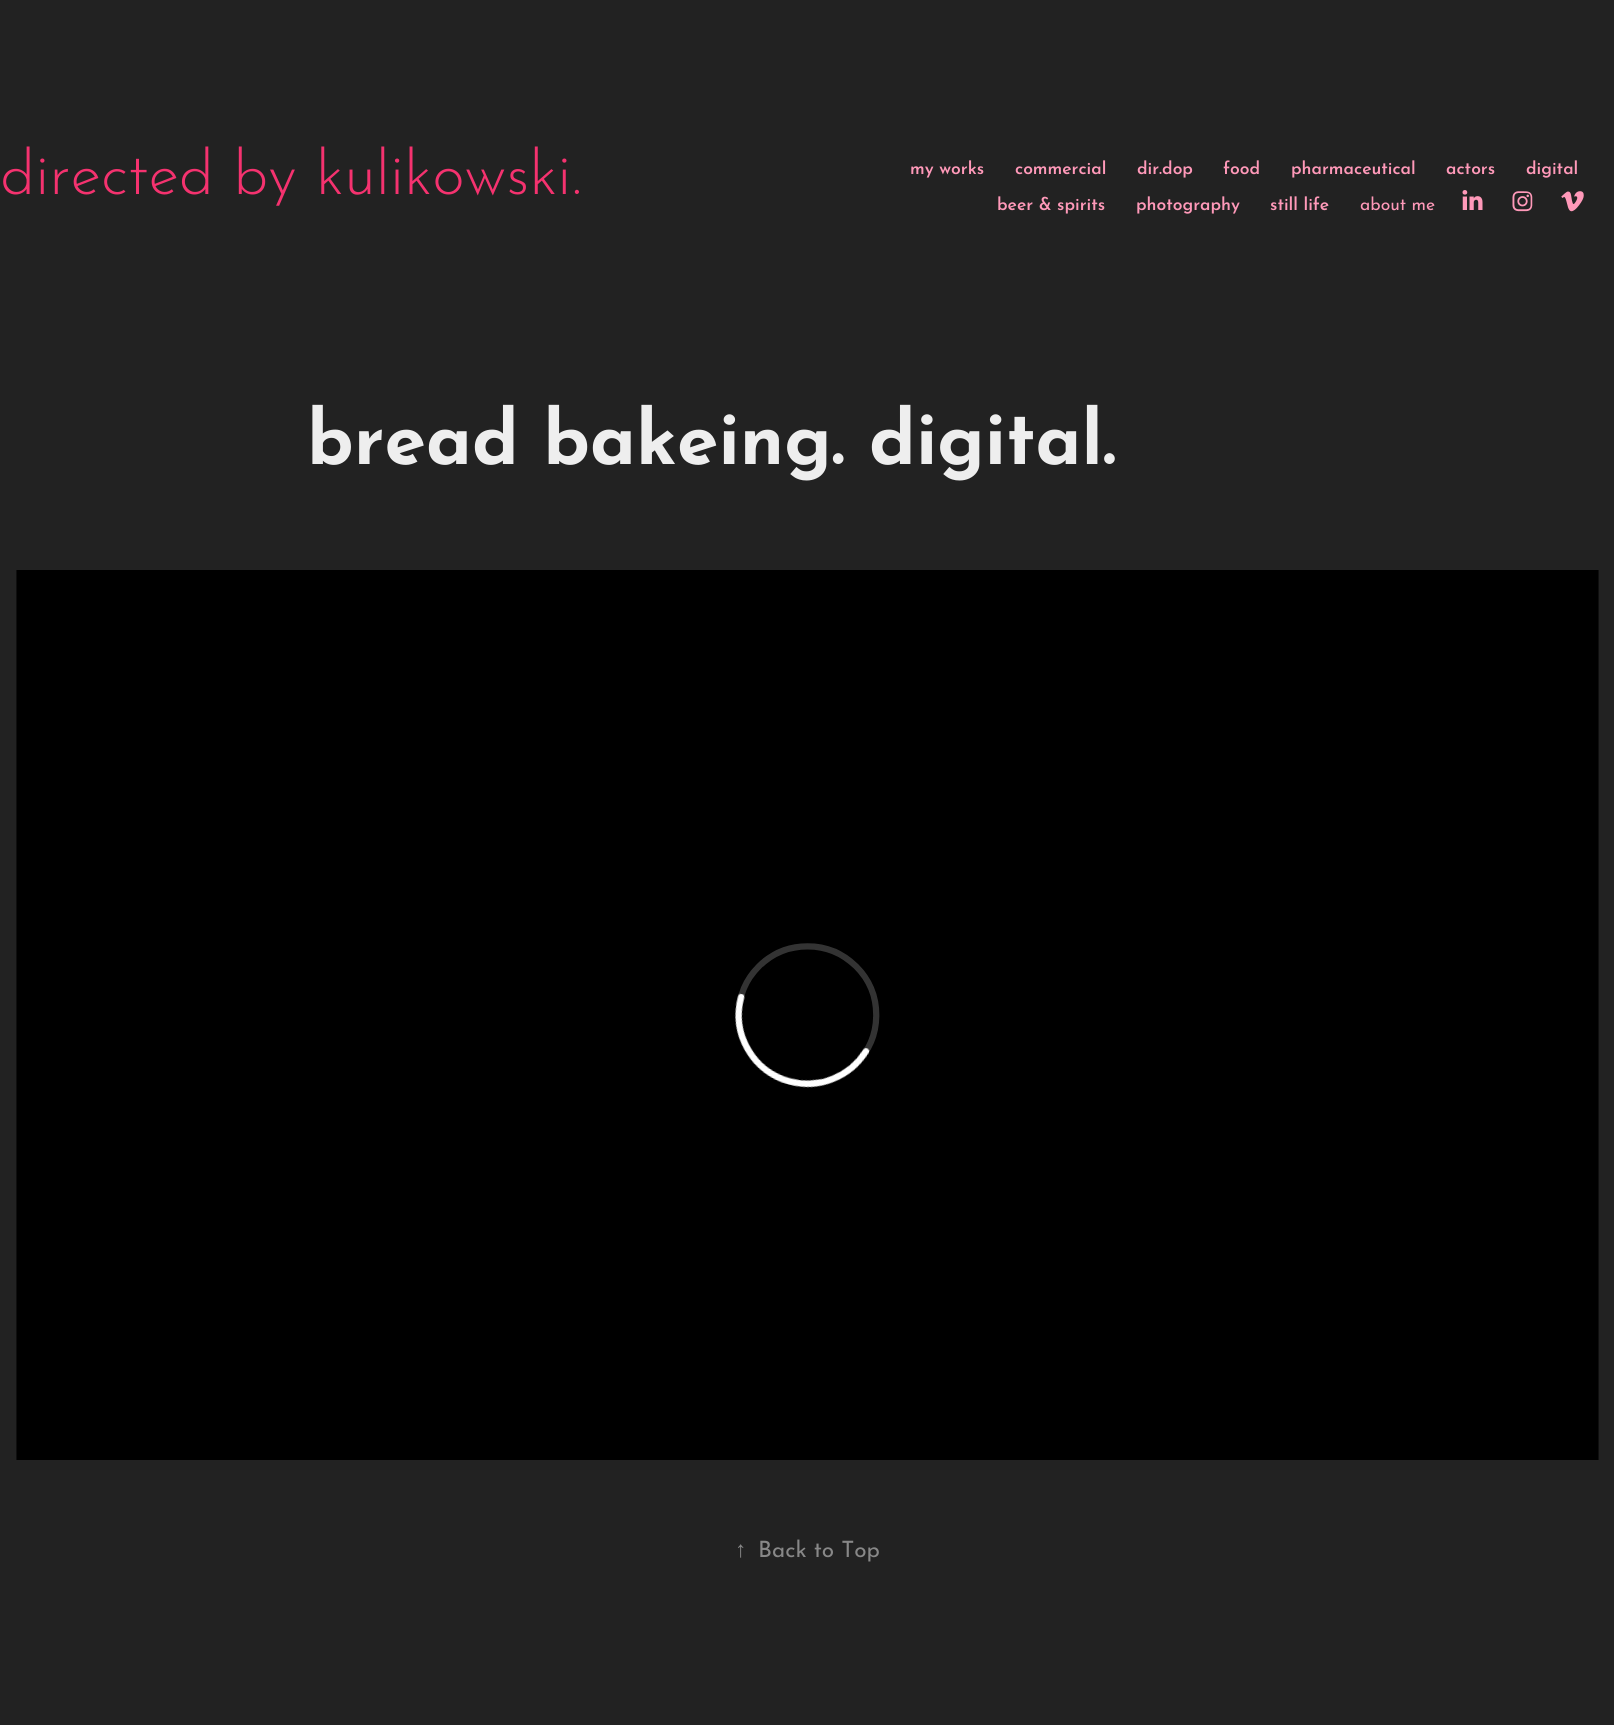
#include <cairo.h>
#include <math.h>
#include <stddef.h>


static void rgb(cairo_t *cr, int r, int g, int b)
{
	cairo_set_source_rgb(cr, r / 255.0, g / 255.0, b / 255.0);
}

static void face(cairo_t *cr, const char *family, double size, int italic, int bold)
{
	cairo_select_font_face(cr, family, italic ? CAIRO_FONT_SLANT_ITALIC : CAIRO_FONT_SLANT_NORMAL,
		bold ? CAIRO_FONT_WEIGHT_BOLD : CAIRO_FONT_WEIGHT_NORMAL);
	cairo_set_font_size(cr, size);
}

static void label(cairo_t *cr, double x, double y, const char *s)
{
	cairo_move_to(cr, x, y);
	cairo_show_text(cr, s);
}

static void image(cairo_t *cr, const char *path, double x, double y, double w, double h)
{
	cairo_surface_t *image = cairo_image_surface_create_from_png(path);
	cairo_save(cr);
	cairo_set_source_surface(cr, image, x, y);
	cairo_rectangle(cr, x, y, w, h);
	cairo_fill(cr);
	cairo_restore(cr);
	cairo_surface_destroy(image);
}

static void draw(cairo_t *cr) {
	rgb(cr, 34, 34, 34);
	cairo_paint(cr);
	face(cr, "Josefin Sans Light", 62.5, 0, 0);
	rgb(cr, 245, 50, 111);
	label(cr, 0, 194, "directed by kulikowski.");
	face(cr, "Josefin Sans SemiBold", 17.5, 0, 0);
	rgb(cr, 255, 153, 185);
	label(cr, 910, 174, "my works");
	label(cr, 1015, 174, "commercial");
	label(cr, 1137, 174, "dir.dop");
	label(cr, 1223, 174, "food");
	label(cr, 1291, 174, "pharmaceutical");
	label(cr, 1446, 174, "actors");
	label(cr, 1526, 174, "digital");
	label(cr, 997, 210, "beer & spirits");
	label(cr, 1136, 210, "photography");
	label(cr, 1270, 210, "still life");
	face(cr, "Josefin Sans", 17.5, 0, 0);
	label(cr, 1360, 210, "about me");
	image(cr, "image0.png", 1462, 190, 21, 20);
	image(cr, "image1.png", 1512, 191, 21, 21);
	image(cr, "image2.png", 1561, 191, 23, 21);
	face(cr, "Josefin Sans", 75, 0, 1);
	rgb(cr, 238, 238, 238);
	label(cr, 307, 464, "bread bakeing. digital.");
	image(cr, "image3.png", 16, 570, 1583, 890);
	face(cr, "Liberation Serif", 22.5, 0, 0);
	rgb(cr, 136, 136, 136);
	label(cr, 735, 1557, "↑");
	face(cr, "Josefin Sans", 22.5, 0, 0);
	label(cr, 758, 1557, "Back to Top");
}

int main(void) {
	cairo_surface_t *surface = cairo_image_surface_create(CAIRO_FORMAT_RGB24, 1614, 1725);
	cairo_t *cr = cairo_create(surface);
	cairo_font_options_t *options = cairo_font_options_create();
	cairo_font_options_set_hint_metrics(options, CAIRO_HINT_METRICS_OFF);
	cairo_font_options_set_hint_style(options, CAIRO_HINT_STYLE_NONE);
	cairo_set_font_options(cr, options);
	cairo_set_miter_limit(cr, 4);
	draw(cr);
	cairo_surface_write_to_png(surface, "render.png");
	cairo_font_options_destroy(options);
	cairo_destroy(cr);
	cairo_surface_destroy(surface);
	return 0;
}
